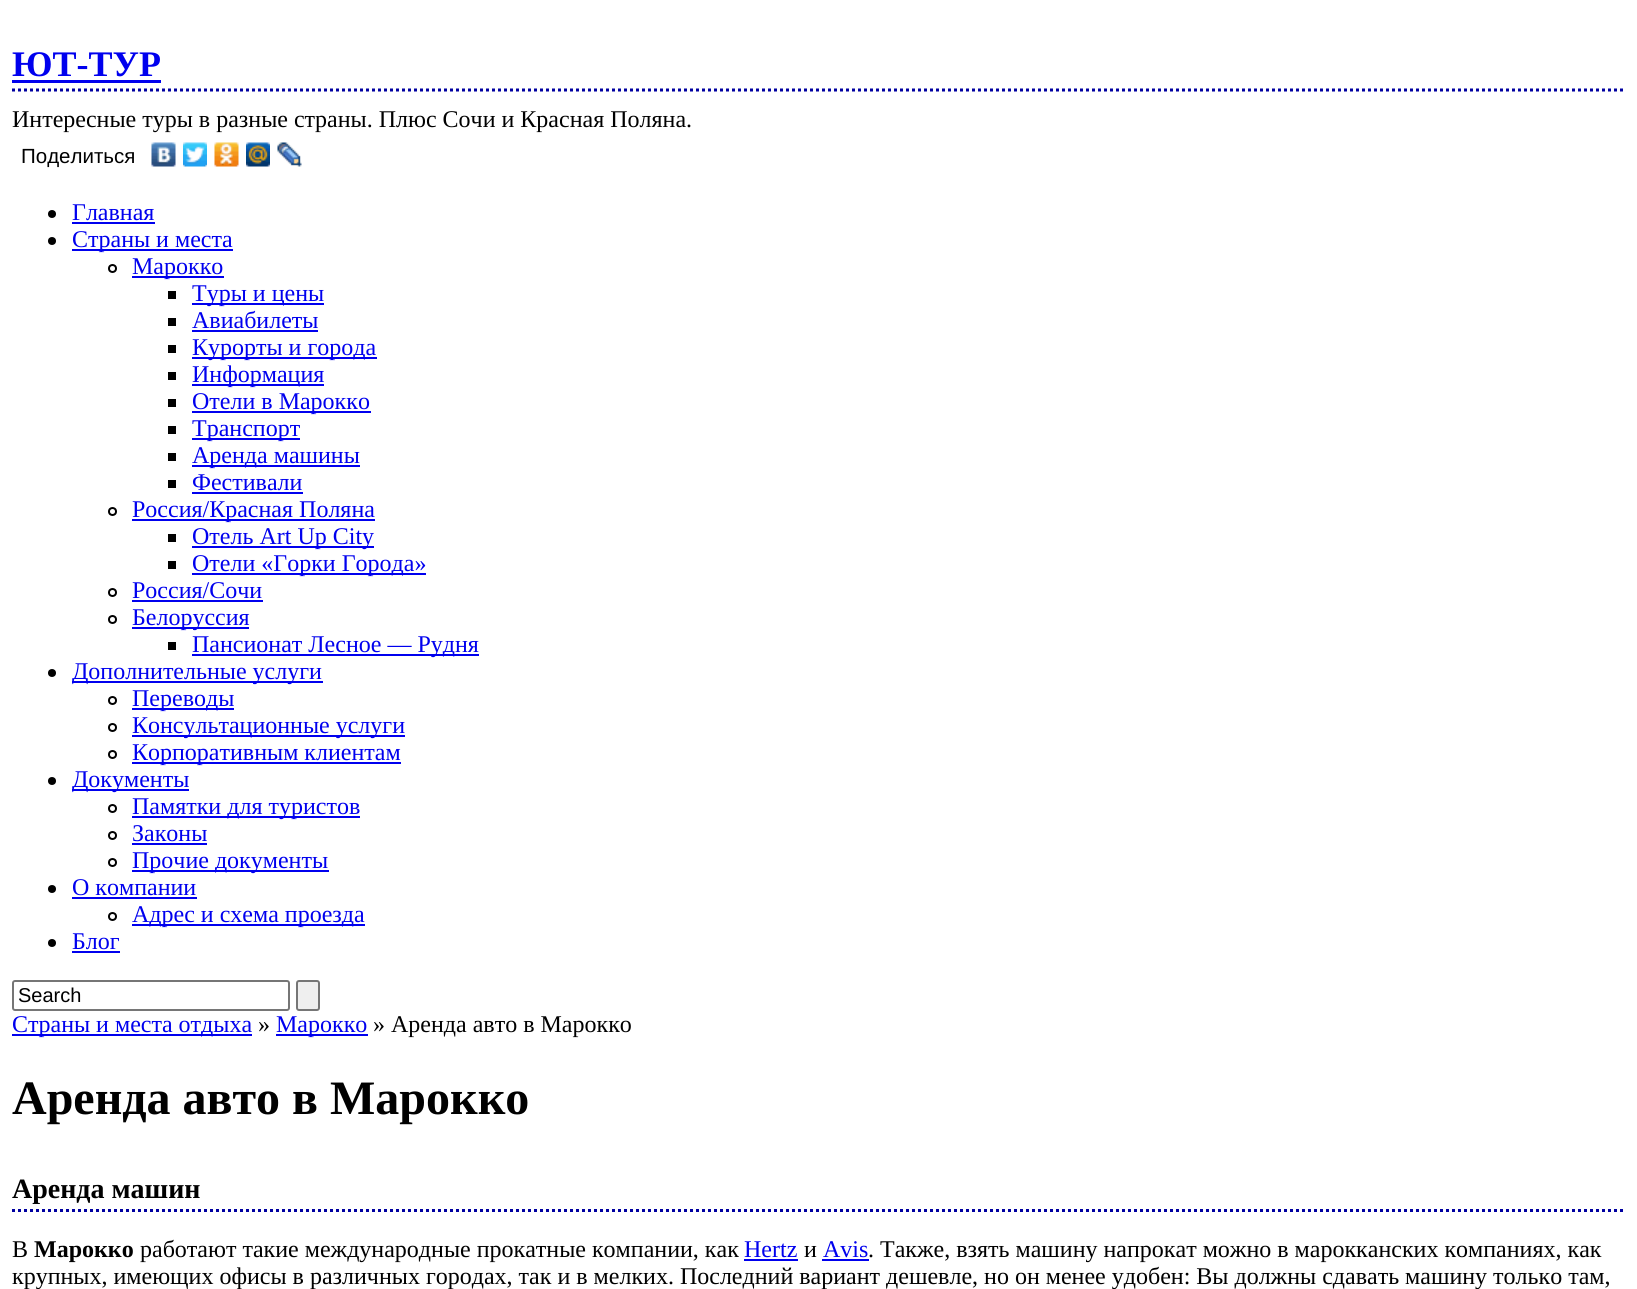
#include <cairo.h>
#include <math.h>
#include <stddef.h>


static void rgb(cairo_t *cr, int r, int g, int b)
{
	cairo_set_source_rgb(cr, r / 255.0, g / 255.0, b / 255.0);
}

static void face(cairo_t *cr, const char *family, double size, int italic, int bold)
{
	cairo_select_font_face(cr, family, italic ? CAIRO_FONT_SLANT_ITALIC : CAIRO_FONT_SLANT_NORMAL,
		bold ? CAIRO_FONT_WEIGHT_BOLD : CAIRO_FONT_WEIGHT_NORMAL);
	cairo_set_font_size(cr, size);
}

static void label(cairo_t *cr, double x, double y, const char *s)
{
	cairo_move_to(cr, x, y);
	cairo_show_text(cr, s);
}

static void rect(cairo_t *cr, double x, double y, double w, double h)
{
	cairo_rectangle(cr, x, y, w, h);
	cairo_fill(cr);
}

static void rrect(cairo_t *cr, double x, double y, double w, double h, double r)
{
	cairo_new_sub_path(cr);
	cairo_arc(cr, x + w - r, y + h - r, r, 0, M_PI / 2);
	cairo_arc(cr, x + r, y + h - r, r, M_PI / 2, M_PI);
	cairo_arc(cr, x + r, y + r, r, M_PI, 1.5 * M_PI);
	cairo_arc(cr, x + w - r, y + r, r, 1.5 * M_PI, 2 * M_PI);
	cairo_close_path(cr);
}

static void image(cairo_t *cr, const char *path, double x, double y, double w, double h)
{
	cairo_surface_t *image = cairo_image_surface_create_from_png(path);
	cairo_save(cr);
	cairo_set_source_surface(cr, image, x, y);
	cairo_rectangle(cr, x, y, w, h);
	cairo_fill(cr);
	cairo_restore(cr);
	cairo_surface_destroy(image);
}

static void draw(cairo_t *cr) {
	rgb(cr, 255, 255, 255);
	cairo_paint(cr);
	cairo_new_path(cr);
	cairo_move_to(cr, 12, 90);
	cairo_line_to(cr, 1626, 90);
	rgb(cr, 0, 0, 160);
	cairo_set_line_width(cr, 3);
	cairo_set_dash(cr, (double[]){3, 3}, 2, 0);
	cairo_stroke(cr);
	face(cr, "Liberation Serif", 36, 0, 1);
	rgb(cr, 0, 0, 238);
	label(cr, 12, 76, "ЮТ-ТУР");
	rect(cr, 12, 80, 149, 3);
	face(cr, "Liberation Serif", 24, 0, 0);
	rgb(cr, 0, 0, 0);
	label(cr, 12, 127, "Интересные туры в разные страны. Плюс Сочи и Красная Поляна.");
	face(cr, "Liberation Sans", 20.5, 0, 0);
	label(cr, 21, 163, "Поделиться");
	image(cr, "image0.png", 151, 142, 25, 25);
	image(cr, "image1.png", 183, 142, 24, 25);
	image(cr, "image2.png", 214, 142, 25, 25);
	image(cr, "image3.png", 246, 142, 24, 25);
	image(cr, "image4.png", 277, 142, 25, 25);
	cairo_arc(cr, 52, 214, 4, 0, 2 * M_PI);
	cairo_fill(cr);
	face(cr, "Liberation Serif", 24, 0, 0);
	rgb(cr, 0, 0, 238);
	label(cr, 72, 220, "Главная");
	rect(cr, 72, 222, 83, 2);
	rgb(cr, 0, 0, 0);
	cairo_new_path(cr);
	cairo_arc(cr, 52, 241, 4, 0, 2 * M_PI);
	cairo_fill(cr);
	rgb(cr, 0, 0, 238);
	rect(cr, 72, 249, 161, 2);
	label(cr, 72, 247, "Страны и места");
	cairo_new_path(cr);
	cairo_arc(cr, 112.5, 268.5, 3.5, 0, 2 * M_PI);
	rgb(cr, 0, 0, 0);
	cairo_set_line_width(cr, 2);
	cairo_set_dash(cr, NULL, 0, 0);
	cairo_stroke(cr);
	rgb(cr, 0, 0, 238);
	rect(cr, 132, 276, 92, 2);
	label(cr, 132, 274, "Марокко");
	rgb(cr, 0, 0, 0);
	rect(cr, 168, 291, 8, 8);
	rgb(cr, 0, 0, 238);
	rect(cr, 192, 303, 132, 2);
	label(cr, 192, 301, "Туры и цены");
	rgb(cr, 0, 0, 0);
	rect(cr, 168, 318, 8, 8);
	rgb(cr, 0, 0, 238);
	label(cr, 192, 328, "Авиабилеты");
	rect(cr, 192, 330, 126, 2);
	rgb(cr, 0, 0, 0);
	rect(cr, 168, 345, 8, 8);
	rgb(cr, 0, 0, 238);
	rect(cr, 192, 357, 185, 2);
	label(cr, 192, 355, "Курорты и города");
	rgb(cr, 0, 0, 0);
	rect(cr, 168, 372, 8, 8);
	rgb(cr, 0, 0, 238);
	rect(cr, 192, 384, 132, 2);
	label(cr, 192, 382, "Информация");
	rgb(cr, 0, 0, 0);
	rect(cr, 168, 399, 8, 8);
	rgb(cr, 0, 0, 238);
	rect(cr, 192, 411, 179, 2);
	label(cr, 192, 409, "Отели в Марокко");
	rgb(cr, 0, 0, 0);
	rect(cr, 168, 426, 8, 8);
	rgb(cr, 0, 0, 238);
	rect(cr, 192, 438, 108, 2);
	label(cr, 192, 436, "Транспорт");
	rgb(cr, 0, 0, 0);
	rect(cr, 168, 453, 8, 8);
	rgb(cr, 0, 0, 238);
	rect(cr, 192, 465, 168, 2);
	label(cr, 192, 463, "Аренда машины");
	rgb(cr, 0, 0, 0);
	rect(cr, 168, 480, 8, 8);
	rgb(cr, 0, 0, 238);
	label(cr, 192, 490, "Фестивали");
	rect(cr, 192, 492, 111, 2);
	cairo_new_path(cr);
	cairo_arc(cr, 112.5, 511.5, 3.5, 0, 2 * M_PI);
	rgb(cr, 0, 0, 0);
	cairo_stroke(cr);
	rgb(cr, 0, 0, 238);
	rect(cr, 132, 519, 243, 2);
	label(cr, 132, 517, "Россия/Красная Поляна");
	rgb(cr, 0, 0, 0);
	rect(cr, 168, 534, 8, 8);
	rgb(cr, 0, 0, 238);
	rect(cr, 192, 546, 182, 2);
	label(cr, 192, 544, "Отель Art Up City");
	rgb(cr, 0, 0, 0);
	rect(cr, 168, 561, 8, 8);
	rgb(cr, 0, 0, 238);
	rect(cr, 192, 573, 234, 2);
	label(cr, 192, 571, "Отели «Горки Города»");
	cairo_new_path(cr);
	cairo_arc(cr, 112.5, 592.5, 3.5, 0, 2 * M_PI);
	rgb(cr, 0, 0, 0);
	cairo_stroke(cr);
	rgb(cr, 0, 0, 238);
	label(cr, 132, 598, "Россия/Сочи");
	rect(cr, 132, 600, 131, 2);
	cairo_new_path(cr);
	cairo_arc(cr, 112.5, 619.5, 3.5, 0, 2 * M_PI);
	rgb(cr, 0, 0, 0);
	cairo_stroke(cr);
	rgb(cr, 0, 0, 238);
	rect(cr, 132, 627, 117, 2);
	label(cr, 132, 625, "Белоруссия");
	rgb(cr, 0, 0, 0);
	rect(cr, 168, 642, 8, 8);
	rgb(cr, 0, 0, 238);
	rect(cr, 192, 654, 287, 2);
	label(cr, 192, 652, "Пансионат Лесное — Рудня");
	rgb(cr, 0, 0, 0);
	cairo_new_path(cr);
	cairo_arc(cr, 52, 673, 4, 0, 2 * M_PI);
	cairo_fill(cr);
	rgb(cr, 0, 0, 238);
	rect(cr, 72, 681, 251, 2);
	label(cr, 72, 679, "Дополнительные услуги");
	cairo_new_path(cr);
	cairo_arc(cr, 112.5, 700.5, 3.5, 0, 2 * M_PI);
	rgb(cr, 0, 0, 0);
	cairo_stroke(cr);
	rgb(cr, 0, 0, 238);
	rect(cr, 132, 708, 102, 2);
	label(cr, 132, 706, "Переводы");
	cairo_new_path(cr);
	cairo_arc(cr, 112.5, 727.5, 3.5, 0, 2 * M_PI);
	rgb(cr, 0, 0, 0);
	cairo_stroke(cr);
	rgb(cr, 0, 0, 238);
	rect(cr, 132, 735, 273, 2);
	label(cr, 132, 733, "Консультационные услуги");
	cairo_new_path(cr);
	cairo_arc(cr, 112.5, 754.5, 3.5, 0, 2 * M_PI);
	rgb(cr, 0, 0, 0);
	cairo_stroke(cr);
	rgb(cr, 0, 0, 238);
	rect(cr, 132, 762, 269, 2);
	label(cr, 132, 760, "Корпоративным клиентам");
	rgb(cr, 0, 0, 0);
	cairo_new_path(cr);
	cairo_arc(cr, 52, 781, 4, 0, 2 * M_PI);
	cairo_fill(cr);
	rgb(cr, 0, 0, 238);
	rect(cr, 72, 789, 117, 2);
	label(cr, 72, 787, "Документы");
	cairo_new_path(cr);
	cairo_arc(cr, 112.5, 808.5, 3.5, 0, 2 * M_PI);
	rgb(cr, 0, 0, 0);
	cairo_stroke(cr);
	rgb(cr, 0, 0, 238);
	rect(cr, 132, 816, 228, 2);
	label(cr, 132, 814, "Памятки для туристов");
	cairo_new_path(cr);
	cairo_arc(cr, 112.5, 835.5, 3.5, 0, 2 * M_PI);
	rgb(cr, 0, 0, 0);
	cairo_stroke(cr);
	rgb(cr, 0, 0, 238);
	label(cr, 132, 841, "Законы");
	rect(cr, 132, 843, 75, 2);
	cairo_new_path(cr);
	cairo_arc(cr, 112.5, 862.5, 3.5, 0, 2 * M_PI);
	rgb(cr, 0, 0, 0);
	cairo_stroke(cr);
	rgb(cr, 0, 0, 238);
	rect(cr, 132, 870, 197, 2);
	label(cr, 132, 868, "Прочие документы");
	rgb(cr, 0, 0, 0);
	cairo_new_path(cr);
	cairo_arc(cr, 52, 889, 4, 0, 2 * M_PI);
	cairo_fill(cr);
	rgb(cr, 0, 0, 238);
	label(cr, 72, 895, "О компании");
	rect(cr, 72, 897, 125, 2);
	cairo_new_path(cr);
	cairo_arc(cr, 112.5, 916.5, 3.5, 0, 2 * M_PI);
	rgb(cr, 0, 0, 0);
	cairo_stroke(cr);
	rgb(cr, 0, 0, 238);
	rect(cr, 132, 924, 233, 2);
	label(cr, 132, 922, "Адрес и схема проезда");
	rgb(cr, 0, 0, 0);
	cairo_new_path(cr);
	cairo_arc(cr, 52, 943, 4, 0, 2 * M_PI);
	cairo_fill(cr);
	rgb(cr, 0, 0, 238);
	label(cr, 72, 949, "Блог");
	rect(cr, 72, 951, 48, 2);
	rrect(cr, 13, 981, 276, 29, 2);
	rgb(cr, 118, 118, 118);
	cairo_stroke(cr);
	face(cr, "Liberation Sans", 20, 0, 0);
	rgb(cr, 0, 0, 0);
	label(cr, 18, 1002, "Search");
	rgb(cr, 239, 239, 239);
	rrect(cr, 297, 981, 22, 29, 2);
	cairo_fill_preserve(cr);
	rgb(cr, 118, 118, 118);
	cairo_stroke(cr);
	rgb(cr, 0, 0, 238);
	rect(cr, 12, 1034, 240, 2);
	face(cr, "Liberation Serif", 24, 0, 0);
	label(cr, 12, 1032, "Страны и места отдыха");
	rgb(cr, 0, 0, 0);
	label(cr, 258, 1032, "»");
	rgb(cr, 0, 0, 238);
	rect(cr, 276, 1034, 92, 2);
	label(cr, 276, 1032, "Марокко");
	rgb(cr, 0, 0, 0);
	label(cr, 373, 1032, "» Аренда авто в Марокко");
	face(cr, "Liberation Serif", 48, 0, 1);
	label(cr, 12, 1114, "Аренда авто в Марокко");
	cairo_new_path(cr);
	cairo_move_to(cr, 12, 1210.5);
	cairo_line_to(cr, 1626, 1210.5);
	rgb(cr, 0, 0, 160);
	cairo_set_line_width(cr, 3);
	cairo_set_dash(cr, (double[]){3, 3}, 2, 0);
	cairo_stroke(cr);
	face(cr, "Liberation Serif", 28, 0, 1);
	rgb(cr, 0, 0, 0);
	label(cr, 12, 1198, "Аренда машин");
	face(cr, "Liberation Serif", 24, 0, 0);
	label(cr, 12, 1257, "В");
	face(cr, "Liberation Serif", 24, 0, 1);
	label(cr, 34, 1257, "Марокко");
	face(cr, "Liberation Serif", 24, 0, 0);
	label(cr, 140, 1257, "работают такие международные прокатные компании, как");
	rgb(cr, 0, 0, 238);
	label(cr, 744, 1257, "Hertz");
	rect(cr, 744, 1259, 54, 2);
	rgb(cr, 0, 0, 0);
	label(cr, 804, 1257, "и");
	rgb(cr, 0, 0, 238);
	label(cr, 823, 1257, "Avis");
	rect(cr, 822, 1259, 47, 2);
	rgb(cr, 0, 0, 0);
	label(cr, 868, 1257, ". Также, взять машину напрокат можно в марокканских компаниях, как");
	label(cr, 12, 1284, "крупных, имеющих офисы в различных городах, так и в мелких. Последний вариант дешевле, но он менее удобен: Вы должны сдавать машину только там,");
}

int main(void) {
	cairo_surface_t *surface = cairo_image_surface_create(CAIRO_FORMAT_RGB24, 1637, 1289);
	cairo_t *cr = cairo_create(surface);
	cairo_font_options_t *options = cairo_font_options_create();
	cairo_font_options_set_hint_metrics(options, CAIRO_HINT_METRICS_OFF);
	cairo_font_options_set_hint_style(options, CAIRO_HINT_STYLE_NONE);
	cairo_set_font_options(cr, options);
	cairo_set_miter_limit(cr, 4);
	draw(cr);
	cairo_surface_write_to_png(surface, "render.png");
	cairo_font_options_destroy(options);
	cairo_destroy(cr);
	cairo_surface_destroy(surface);
	return 0;
}
